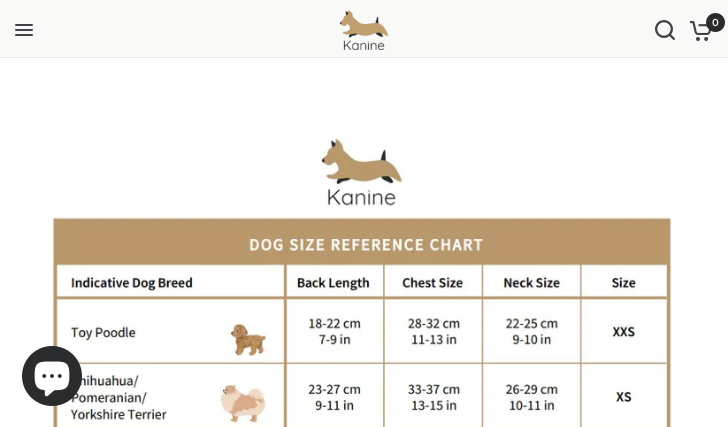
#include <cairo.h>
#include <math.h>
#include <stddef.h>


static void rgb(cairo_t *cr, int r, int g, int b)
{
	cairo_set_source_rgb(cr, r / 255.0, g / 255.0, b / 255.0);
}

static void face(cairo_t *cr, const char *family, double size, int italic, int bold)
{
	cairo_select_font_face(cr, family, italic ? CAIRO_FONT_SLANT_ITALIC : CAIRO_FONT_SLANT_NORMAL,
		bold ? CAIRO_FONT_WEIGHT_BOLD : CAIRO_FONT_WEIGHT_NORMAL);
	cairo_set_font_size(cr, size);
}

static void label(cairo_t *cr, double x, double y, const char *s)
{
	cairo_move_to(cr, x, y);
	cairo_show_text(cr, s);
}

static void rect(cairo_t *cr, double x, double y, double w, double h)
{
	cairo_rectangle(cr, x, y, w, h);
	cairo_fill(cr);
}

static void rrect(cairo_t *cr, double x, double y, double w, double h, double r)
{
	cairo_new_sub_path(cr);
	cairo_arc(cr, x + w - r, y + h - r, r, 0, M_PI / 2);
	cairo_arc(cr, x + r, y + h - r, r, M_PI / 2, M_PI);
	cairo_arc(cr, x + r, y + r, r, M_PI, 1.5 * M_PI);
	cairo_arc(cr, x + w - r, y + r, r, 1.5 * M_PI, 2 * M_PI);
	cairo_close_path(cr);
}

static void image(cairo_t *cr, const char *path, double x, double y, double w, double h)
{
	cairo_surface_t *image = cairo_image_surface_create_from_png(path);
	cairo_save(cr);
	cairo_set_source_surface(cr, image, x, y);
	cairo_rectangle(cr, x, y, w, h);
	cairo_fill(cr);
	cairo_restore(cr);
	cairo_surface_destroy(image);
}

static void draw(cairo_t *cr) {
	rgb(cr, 255, 255, 255);
	cairo_paint(cr);
	rgb(cr, 249, 249, 247);
	rect(cr, 0, 0, 728, 57);
	image(cr, "image0.png", 339, 10, 50, 40);
	image(cr, "image1.png", 655, 20, 20, 20);
	image(cr, "image2.png", 689, 21, 22, 20);
	rgb(cr, 42, 43, 45);
	cairo_arc(cr, 715.5, 22.5, 9.5, 0, 2 * M_PI);
	cairo_fill(cr);
	face(cr, "DM Sans SemiBold", 10, 0, 0);
	rgb(cr, 249, 249, 247);
	label(cr, 712, 26, "0");
	rgb(cr, 68, 66, 73);
	rrect(cr, 15, 24, 18, 2, 1);
	cairo_fill(cr);
	rrect(cr, 15, 29, 18, 2, 1);
	cairo_fill(cr);
	rrect(cr, 15, 34, 18, 2, 1);
	cairo_fill(cr);
	rgb(cr, 235, 235, 237);
	rect(cr, 0, 57, 728, 1);
	image(cr, "image3.png", 50, 136, 623, 291);
	rgb(cr, 42, 43, 45);
	cairo_arc(cr, 52, 376, 30, 0, 2 * M_PI);
	cairo_fill(cr);
	image(cr, "image4.png", 34, 361, 36, 36);
}

int main(void) {
	cairo_surface_t *surface = cairo_image_surface_create(CAIRO_FORMAT_RGB24, 728, 427);
	cairo_t *cr = cairo_create(surface);
	cairo_font_options_t *options = cairo_font_options_create();
	cairo_font_options_set_hint_metrics(options, CAIRO_HINT_METRICS_OFF);
	cairo_font_options_set_hint_style(options, CAIRO_HINT_STYLE_NONE);
	cairo_set_font_options(cr, options);
	cairo_set_miter_limit(cr, 4);
	draw(cr);
	cairo_surface_write_to_png(surface, "render.png");
	cairo_font_options_destroy(options);
	cairo_destroy(cr);
	cairo_surface_destroy(surface);
	return 0;
}
